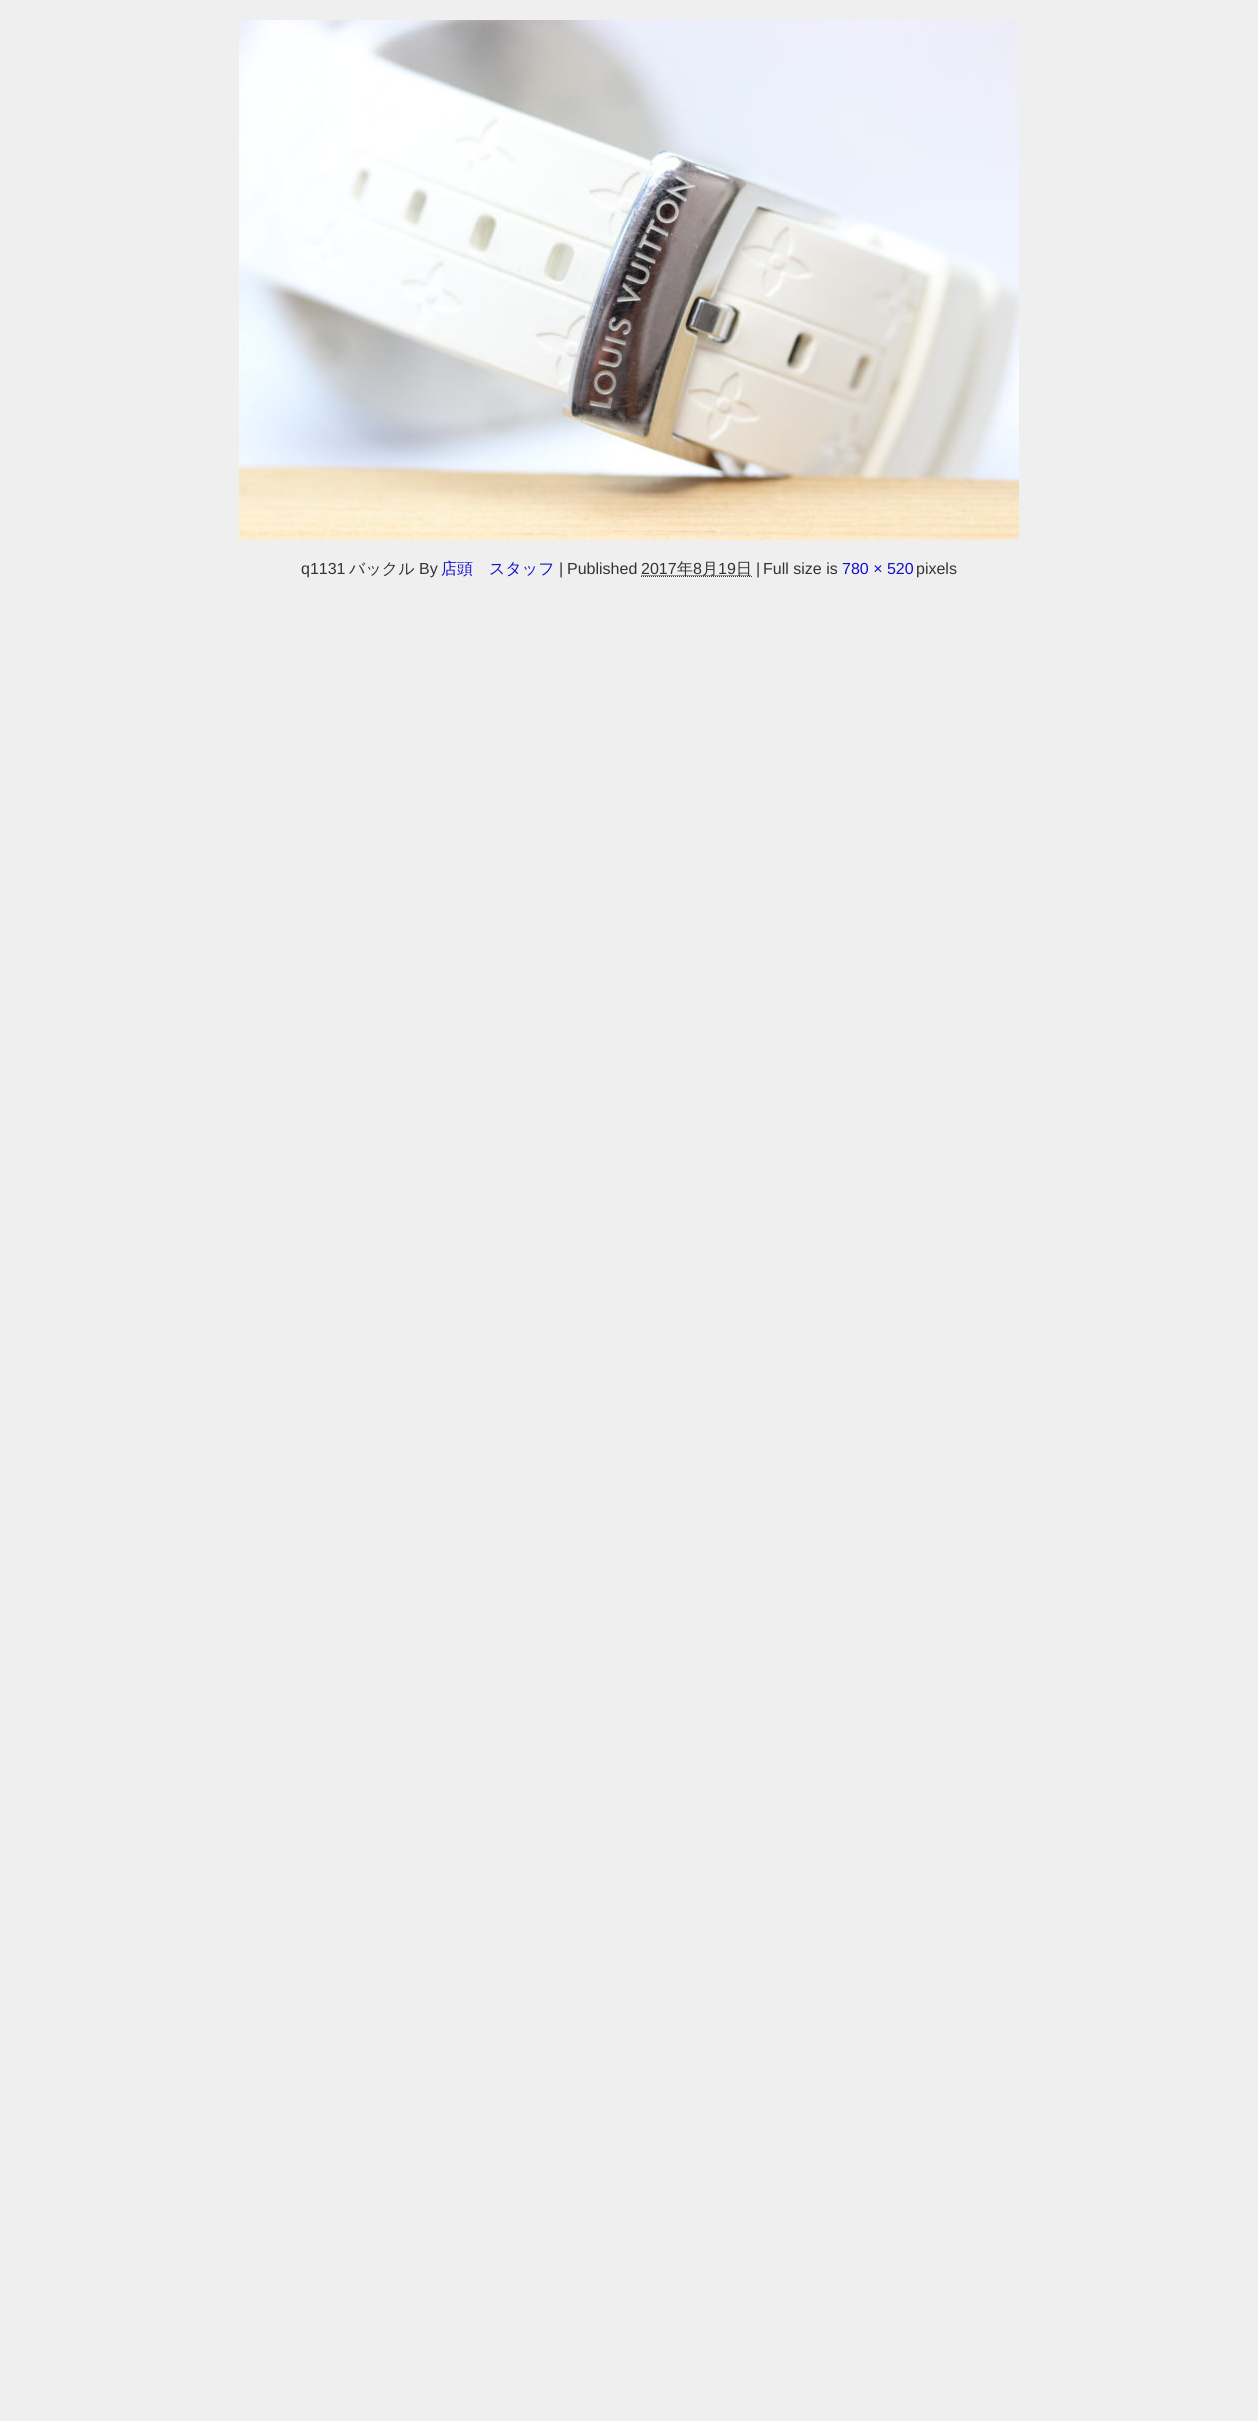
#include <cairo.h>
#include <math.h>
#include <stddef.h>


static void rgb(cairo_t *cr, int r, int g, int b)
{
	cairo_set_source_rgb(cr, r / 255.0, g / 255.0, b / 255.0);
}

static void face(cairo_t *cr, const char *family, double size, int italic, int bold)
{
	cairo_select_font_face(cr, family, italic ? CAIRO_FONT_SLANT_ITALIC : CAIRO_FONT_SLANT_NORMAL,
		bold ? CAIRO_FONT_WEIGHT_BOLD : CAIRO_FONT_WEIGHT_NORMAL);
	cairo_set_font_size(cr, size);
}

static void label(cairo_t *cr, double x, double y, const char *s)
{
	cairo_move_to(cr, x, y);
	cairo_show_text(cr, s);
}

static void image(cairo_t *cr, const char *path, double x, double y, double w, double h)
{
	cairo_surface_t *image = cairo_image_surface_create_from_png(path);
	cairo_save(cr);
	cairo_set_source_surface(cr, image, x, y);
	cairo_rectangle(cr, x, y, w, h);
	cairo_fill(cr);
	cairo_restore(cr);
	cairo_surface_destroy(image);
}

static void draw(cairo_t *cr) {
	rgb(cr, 239, 239, 239);
	cairo_paint(cr);
	image(cr, "image0.png", 239, 20, 780, 520);
	face(cr, "Liberation Sans", 16, 0, 0);
	rgb(cr, 51, 51, 51);
	label(cr, 301, 574, "q1131");
	face(cr, "WenQuanYi Zen Hei Medium", 16, 0, 0);
	label(cr, 349, 574, "バックル");
	face(cr, "Liberation Sans", 16, 0, 0);
	label(cr, 419, 574, "By");
	face(cr, "WenQuanYi Zen Hei Medium", 16, 0, 0);
	rgb(cr, 17, 17, 204);
	label(cr, 441, 574, "店頭　スタッフ");
	face(cr, "Liberation Sans", 16, 0, 0);
	rgb(cr, 51, 51, 51);
	label(cr, 559, 574, "|");
	label(cr, 567, 574, "Published");
	label(cr, 641, 574, "2017");
	cairo_new_path(cr);
	cairo_move_to(cr, 641.5, 575.5);
	cairo_line_to(cr, 751.5, 575.5);
	cairo_set_line_width(cr, 1);
	cairo_set_dash(cr, (double[]){1, 1}, 2, 0);
	cairo_stroke(cr);
	face(cr, "WenQuanYi Zen Hei Medium", 16, 0, 0);
	label(cr, 677, 574, "年");
	face(cr, "Liberation Sans", 16, 0, 0);
	label(cr, 693, 574, "8");
	cairo_new_path(cr);
	cairo_move_to(cr, 641, 576.5);
	cairo_line_to(cr, 752, 576.5);
	cairo_stroke(cr);
	face(cr, "WenQuanYi Zen Hei Medium", 16, 0, 0);
	label(cr, 702, 574, "月");
	face(cr, "Liberation Sans", 16, 0, 0);
	label(cr, 718, 574, "19");
	face(cr, "WenQuanYi Zen Hei Medium", 16, 0, 0);
	label(cr, 736, 574, "日");
	face(cr, "Liberation Sans", 16, 0, 0);
	label(cr, 756, 574, "|");
	label(cr, 763, 574, "Full size is");
	rgb(cr, 17, 17, 204);
	label(cr, 842, 574, "780 × 520");
	rgb(cr, 51, 51, 51);
	label(cr, 916, 574, "pixels");
}

int main(void) {
	cairo_surface_t *surface = cairo_image_surface_create(CAIRO_FORMAT_RGB24, 1258, 2421);
	cairo_t *cr = cairo_create(surface);
	cairo_font_options_t *options = cairo_font_options_create();
	cairo_font_options_set_hint_metrics(options, CAIRO_HINT_METRICS_OFF);
	cairo_font_options_set_hint_style(options, CAIRO_HINT_STYLE_NONE);
	cairo_set_font_options(cr, options);
	cairo_set_miter_limit(cr, 4);
	draw(cr);
	cairo_surface_write_to_png(surface, "render.png");
	cairo_font_options_destroy(options);
	cairo_destroy(cr);
	cairo_surface_destroy(surface);
	return 0;
}
